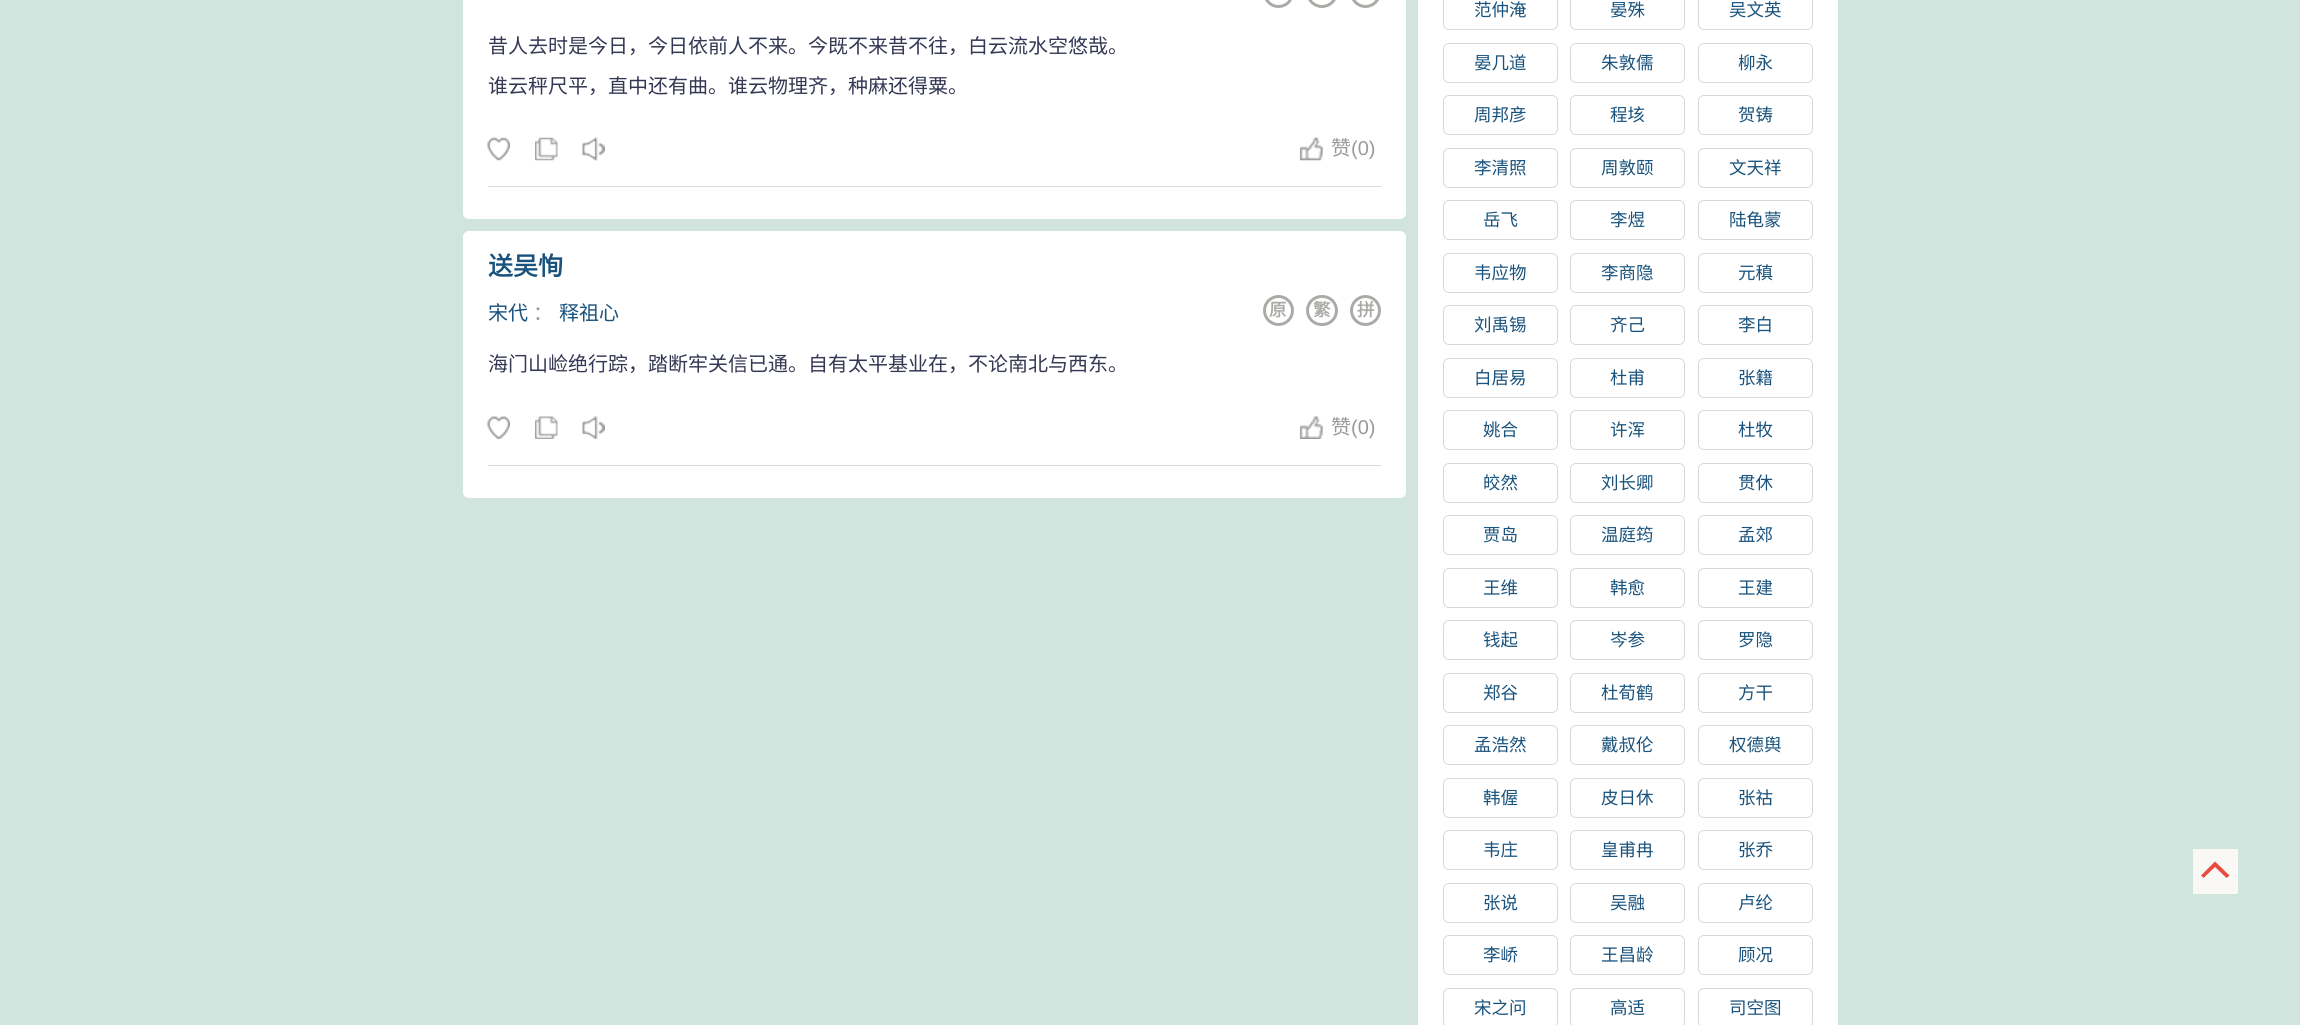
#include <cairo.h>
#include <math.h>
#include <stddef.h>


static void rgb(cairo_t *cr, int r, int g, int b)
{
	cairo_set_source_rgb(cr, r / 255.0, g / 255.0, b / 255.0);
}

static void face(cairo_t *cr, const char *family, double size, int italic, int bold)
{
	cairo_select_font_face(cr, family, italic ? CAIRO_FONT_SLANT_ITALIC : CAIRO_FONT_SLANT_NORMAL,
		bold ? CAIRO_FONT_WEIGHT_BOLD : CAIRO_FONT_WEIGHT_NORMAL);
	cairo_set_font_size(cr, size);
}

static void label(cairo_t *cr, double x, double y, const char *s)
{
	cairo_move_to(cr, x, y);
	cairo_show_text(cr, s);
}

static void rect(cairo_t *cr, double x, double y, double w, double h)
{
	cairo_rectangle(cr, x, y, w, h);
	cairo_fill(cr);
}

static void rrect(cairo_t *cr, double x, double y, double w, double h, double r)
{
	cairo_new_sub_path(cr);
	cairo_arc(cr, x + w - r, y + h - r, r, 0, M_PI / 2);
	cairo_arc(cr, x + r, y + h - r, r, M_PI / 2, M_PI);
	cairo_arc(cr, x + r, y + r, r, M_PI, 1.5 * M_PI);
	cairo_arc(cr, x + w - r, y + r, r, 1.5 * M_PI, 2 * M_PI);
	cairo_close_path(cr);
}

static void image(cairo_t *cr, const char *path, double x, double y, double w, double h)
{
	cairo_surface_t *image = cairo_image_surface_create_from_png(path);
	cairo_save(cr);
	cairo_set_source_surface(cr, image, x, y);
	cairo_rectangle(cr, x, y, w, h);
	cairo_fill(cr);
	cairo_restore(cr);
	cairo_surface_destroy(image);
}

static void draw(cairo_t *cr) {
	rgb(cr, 209, 228, 221);
	cairo_paint(cr);
	rgb(cr, 255, 255, 255);
	rrect(cr, 463, -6, 943, 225, 6);
	cairo_fill(cr);
	rrect(cr, 1264.5, -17.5, 28, 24, 14);
	rgb(cr, 170, 170, 167);
	cairo_set_line_width(cr, 3);
	cairo_stroke(cr);
	rrect(cr, 1307.5, -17.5, 29, 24, 14.5);
	cairo_stroke(cr);
	rrect(cr, 1351.5, -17.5, 28, 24, 14);
	cairo_stroke(cr);
	face(cr, "Noto Sans CJK SC", 20, 0, 0);
	rgb(cr, 52, 56, 83);
	label(cr, 488, 53, "昔人去时是今日，今日依前人不来。今既不来昔不往，白云流水空悠哉。");
	label(cr, 488, 93, "谁云秤尺平，直中还有曲。谁云物理齐，种麻还得粟。");
	image(cr, "image0.png", 487, 137, 23, 24);
	image(cr, "image1.png", 535, 137, 23, 24);
	image(cr, "image2.png", 582, 137, 23, 24);
	image(cr, "image3.png", 1299, 137, 76, 24);
	rgb(cr, 153, 153, 153);
	label(cr, 1331, 155, "赞");
	rgb(cr, 255, 255, 255);
	rect(cr, 1350, 138, 8, 21);
	rect(cr, 1358, 138, 17, 19);
	face(cr, "Liberation Sans", 20, 0, 0);
	rgb(cr, 153, 153, 153);
	label(cr, 1351, 155, "(0)");
	rgb(cr, 218, 217, 209);
	rect(cr, 488, 186, 893, 1);
	rgb(cr, 255, 255, 255);
	rrect(cr, 463, 231, 943, 267, 6);
	cairo_fill(cr);
	face(cr, "Noto Sans CJK SC", 25, 0, 1);
	rgb(cr, 25, 83, 125);
	label(cr, 488, 275, "送吴恂");
	face(cr, "Noto Sans CJK SC", 20, 0, 0);
	label(cr, 488, 320, "宋代");
	rgb(cr, 153, 153, 153);
	label(cr, 533, 320, "：");
	rgb(cr, 25, 83, 125);
	label(cr, 559, 320, "释祖心");
	cairo_new_path(cr);
	cairo_arc(cr, 1278.5, 310.5, 14, 0, 2 * M_PI);
	rgb(cr, 170, 170, 167);
	cairo_stroke(cr);
	face(cr, "Noto Sans CJK SC", 17.5, 0, 1);
	label(cr, 1269, 316, "原");
	rrect(cr, 1307.5, 296.5, 29, 28, 14);
	cairo_stroke(cr);
	label(cr, 1313, 316, "繁");
	cairo_new_path(cr);
	cairo_arc(cr, 1365.5, 310.5, 14, 0, 2 * M_PI);
	cairo_stroke(cr);
	label(cr, 1357, 316, "拼");
	face(cr, "Noto Sans CJK SC", 20, 0, 0);
	rgb(cr, 52, 56, 83);
	label(cr, 488, 371, "海门山崄绝行踪，踏断牢关信已通。自有太平基业在，不论南北与西东。");
	image(cr, "image4.png", 487, 416, 23, 23);
	image(cr, "image5.png", 535, 416, 23, 23);
	image(cr, "image6.png", 582, 416, 23, 23);
	image(cr, "image7.png", 1299, 416, 24, 23);
	rgb(cr, 153, 153, 153);
	label(cr, 1331, 434, "赞");
	face(cr, "Liberation Sans", 20, 0, 0);
	label(cr, 1351, 434, "(0)");
	rgb(cr, 218, 217, 209);
	rect(cr, 488, 465, 893, 1);
	rgb(cr, 255, 255, 255);
	rect(cr, 1418, 0, 420, 1025);
	rrect(cr, 1443.5, -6.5, 114, 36, 5.5);
	rgb(cr, 218, 217, 209);
	cairo_set_line_width(cr, 1);
	cairo_stroke(cr);
	face(cr, "Noto Sans CJK SC", 17.5, 0, 0);
	rgb(cr, 25, 83, 125);
	label(cr, 1474, 16, "范仲淹");
	rrect(cr, 1570.5, -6.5, 114, 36, 5.5);
	rgb(cr, 218, 217, 209);
	cairo_stroke(cr);
	rgb(cr, 25, 83, 125);
	label(cr, 1610, 16, "晏殊");
	rrect(cr, 1698.5, -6.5, 114, 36, 5.5);
	rgb(cr, 218, 217, 209);
	cairo_stroke(cr);
	rgb(cr, 25, 83, 125);
	label(cr, 1729, 16, "吴文英");
	rrect(cr, 1443.5, 43.5, 114, 39, 5.5);
	rgb(cr, 218, 217, 209);
	cairo_stroke(cr);
	rgb(cr, 25, 83, 125);
	label(cr, 1474, 69, "晏几道");
	rrect(cr, 1570.5, 43.5, 114, 39, 5.5);
	rgb(cr, 218, 217, 209);
	cairo_stroke(cr);
	rgb(cr, 25, 83, 125);
	label(cr, 1601, 69, "朱敦儒");
	rrect(cr, 1698.5, 43.5, 114, 39, 5.5);
	rgb(cr, 218, 217, 209);
	cairo_stroke(cr);
	rgb(cr, 25, 83, 125);
	label(cr, 1738, 69, "柳永");
	rrect(cr, 1443.5, 95.5, 114, 39, 5.5);
	rgb(cr, 218, 217, 209);
	cairo_stroke(cr);
	rgb(cr, 25, 83, 125);
	label(cr, 1474, 121, "周邦彦");
	rrect(cr, 1570.5, 95.5, 114, 39, 5.5);
	rgb(cr, 218, 217, 209);
	cairo_stroke(cr);
	rgb(cr, 25, 83, 125);
	label(cr, 1610, 121, "程垓");
	rrect(cr, 1698.5, 95.5, 114, 39, 5.5);
	rgb(cr, 218, 217, 209);
	cairo_stroke(cr);
	rgb(cr, 25, 83, 125);
	label(cr, 1738, 121, "贺铸");
	rrect(cr, 1443.5, 148.5, 114, 39, 5.5);
	rgb(cr, 218, 217, 209);
	cairo_stroke(cr);
	rgb(cr, 25, 83, 125);
	label(cr, 1474, 174, "李清照");
	rrect(cr, 1570.5, 148.5, 114, 39, 5.5);
	rgb(cr, 218, 217, 209);
	cairo_stroke(cr);
	rgb(cr, 25, 83, 125);
	label(cr, 1601, 174, "周敦颐");
	rrect(cr, 1698.5, 148.5, 114, 39, 5.5);
	rgb(cr, 218, 217, 209);
	cairo_stroke(cr);
	rgb(cr, 25, 83, 125);
	label(cr, 1729, 174, "文天祥");
	rrect(cr, 1443.5, 200.5, 114, 39, 5.5);
	rgb(cr, 218, 217, 209);
	cairo_stroke(cr);
	rgb(cr, 25, 83, 125);
	label(cr, 1483, 226, "岳飞");
	rrect(cr, 1570.5, 200.5, 114, 39, 5.5);
	rgb(cr, 218, 217, 209);
	cairo_stroke(cr);
	rgb(cr, 25, 83, 125);
	label(cr, 1610, 226, "李煜");
	rrect(cr, 1698.5, 200.5, 114, 39, 5.5);
	rgb(cr, 218, 217, 209);
	cairo_stroke(cr);
	rgb(cr, 25, 83, 125);
	label(cr, 1729, 226, "陆龟蒙");
	rrect(cr, 1443.5, 253.5, 114, 39, 5.5);
	rgb(cr, 218, 217, 209);
	cairo_stroke(cr);
	rgb(cr, 25, 83, 125);
	label(cr, 1474, 279, "韦应物");
	rrect(cr, 1570.5, 253.5, 114, 39, 5.5);
	rgb(cr, 218, 217, 209);
	cairo_stroke(cr);
	rgb(cr, 25, 83, 125);
	label(cr, 1601, 279, "李商隐");
	rrect(cr, 1698.5, 253.5, 114, 39, 5.5);
	rgb(cr, 218, 217, 209);
	cairo_stroke(cr);
	rgb(cr, 25, 83, 125);
	label(cr, 1738, 279, "元稹");
	rrect(cr, 1443.5, 305.5, 114, 39, 5.5);
	rgb(cr, 218, 217, 209);
	cairo_stroke(cr);
	rgb(cr, 25, 83, 125);
	label(cr, 1474, 331, "刘禹锡");
	rrect(cr, 1570.5, 305.5, 114, 39, 5.5);
	rgb(cr, 218, 217, 209);
	cairo_stroke(cr);
	rgb(cr, 25, 83, 125);
	label(cr, 1610, 331, "齐己");
	rrect(cr, 1698.5, 305.5, 114, 39, 5.5);
	rgb(cr, 218, 217, 209);
	cairo_stroke(cr);
	rgb(cr, 25, 83, 125);
	label(cr, 1738, 331, "李白");
	rrect(cr, 1443.5, 358.5, 114, 39, 5.5);
	rgb(cr, 218, 217, 209);
	cairo_stroke(cr);
	rgb(cr, 25, 83, 125);
	label(cr, 1474, 384, "白居易");
	rrect(cr, 1570.5, 358.5, 114, 39, 5.5);
	rgb(cr, 218, 217, 209);
	cairo_stroke(cr);
	rgb(cr, 25, 83, 125);
	label(cr, 1610, 384, "杜甫");
	rrect(cr, 1698.5, 358.5, 114, 39, 5.5);
	rgb(cr, 218, 217, 209);
	cairo_stroke(cr);
	rgb(cr, 25, 83, 125);
	label(cr, 1738, 384, "张籍");
	rrect(cr, 1443.5, 410.5, 114, 39, 5.5);
	rgb(cr, 218, 217, 209);
	cairo_stroke(cr);
	rgb(cr, 25, 83, 125);
	label(cr, 1483, 436, "姚合");
	rrect(cr, 1570.5, 410.5, 114, 39, 5.5);
	rgb(cr, 218, 217, 209);
	cairo_stroke(cr);
	rgb(cr, 25, 83, 125);
	label(cr, 1610, 436, "许浑");
	rrect(cr, 1698.5, 410.5, 114, 39, 5.5);
	rgb(cr, 218, 217, 209);
	cairo_stroke(cr);
	rgb(cr, 25, 83, 125);
	label(cr, 1738, 436, "杜牧");
	rrect(cr, 1443.5, 463.5, 114, 39, 5.5);
	rgb(cr, 218, 217, 209);
	cairo_stroke(cr);
	rgb(cr, 25, 83, 125);
	label(cr, 1483, 489, "皎然");
	rrect(cr, 1570.5, 463.5, 114, 39, 5.5);
	rgb(cr, 218, 217, 209);
	cairo_stroke(cr);
	rgb(cr, 25, 83, 125);
	label(cr, 1601, 489, "刘长卿");
	rrect(cr, 1698.5, 463.5, 114, 39, 5.5);
	rgb(cr, 218, 217, 209);
	cairo_stroke(cr);
	rgb(cr, 25, 83, 125);
	label(cr, 1738, 489, "贯休");
	rrect(cr, 1443.5, 515.5, 114, 39, 5.5);
	rgb(cr, 218, 217, 209);
	cairo_stroke(cr);
	rgb(cr, 25, 83, 125);
	label(cr, 1483, 541, "贾岛");
	rrect(cr, 1570.5, 515.5, 114, 39, 5.5);
	rgb(cr, 218, 217, 209);
	cairo_stroke(cr);
	rgb(cr, 25, 83, 125);
	label(cr, 1601, 541, "温庭筠");
	rrect(cr, 1698.5, 515.5, 114, 39, 5.5);
	rgb(cr, 218, 217, 209);
	cairo_stroke(cr);
	rgb(cr, 25, 83, 125);
	label(cr, 1738, 541, "孟郊");
	rrect(cr, 1443.5, 568.5, 114, 39, 5.5);
	rgb(cr, 218, 217, 209);
	cairo_stroke(cr);
	rgb(cr, 25, 83, 125);
	label(cr, 1483, 594, "王维");
	rrect(cr, 1570.5, 568.5, 114, 39, 5.5);
	rgb(cr, 218, 217, 209);
	cairo_stroke(cr);
	rgb(cr, 25, 83, 125);
	label(cr, 1610, 594, "韩愈");
	rrect(cr, 1698.5, 568.5, 114, 39, 5.5);
	rgb(cr, 218, 217, 209);
	cairo_stroke(cr);
	rgb(cr, 25, 83, 125);
	label(cr, 1738, 594, "王建");
	rrect(cr, 1443.5, 620.5, 114, 39, 5.5);
	rgb(cr, 218, 217, 209);
	cairo_stroke(cr);
	rgb(cr, 25, 83, 125);
	label(cr, 1483, 646, "钱起");
	rrect(cr, 1570.5, 620.5, 114, 39, 5.5);
	rgb(cr, 218, 217, 209);
	cairo_stroke(cr);
	rgb(cr, 25, 83, 125);
	label(cr, 1610, 646, "岑参");
	rrect(cr, 1698.5, 620.5, 114, 39, 5.5);
	rgb(cr, 218, 217, 209);
	cairo_stroke(cr);
	rgb(cr, 25, 83, 125);
	label(cr, 1738, 646, "罗隐");
	rrect(cr, 1443.5, 673.5, 114, 39, 5.5);
	rgb(cr, 218, 217, 209);
	cairo_stroke(cr);
	rgb(cr, 25, 83, 125);
	label(cr, 1483, 699, "郑谷");
	rrect(cr, 1570.5, 673.5, 114, 39, 5.5);
	rgb(cr, 218, 217, 209);
	cairo_stroke(cr);
	rgb(cr, 25, 83, 125);
	label(cr, 1601, 699, "杜荀鹤");
	rrect(cr, 1698.5, 673.5, 114, 39, 5.5);
	rgb(cr, 218, 217, 209);
	cairo_stroke(cr);
	rgb(cr, 25, 83, 125);
	label(cr, 1738, 699, "方干");
	rrect(cr, 1443.5, 725.5, 114, 39, 5.5);
	rgb(cr, 218, 217, 209);
	cairo_stroke(cr);
	rgb(cr, 25, 83, 125);
	label(cr, 1474, 751, "孟浩然");
	rrect(cr, 1570.5, 725.5, 114, 39, 5.5);
	rgb(cr, 218, 217, 209);
	cairo_stroke(cr);
	rgb(cr, 25, 83, 125);
	label(cr, 1601, 751, "戴叔伦");
	rrect(cr, 1698.5, 725.5, 114, 39, 5.5);
	rgb(cr, 218, 217, 209);
	cairo_stroke(cr);
	rgb(cr, 25, 83, 125);
	label(cr, 1729, 751, "权德舆");
	rrect(cr, 1443.5, 778.5, 114, 39, 5.5);
	rgb(cr, 218, 217, 209);
	cairo_stroke(cr);
	rgb(cr, 25, 83, 125);
	label(cr, 1483, 804, "韩偓");
	rrect(cr, 1570.5, 778.5, 114, 39, 5.5);
	rgb(cr, 218, 217, 209);
	cairo_stroke(cr);
	rgb(cr, 25, 83, 125);
	label(cr, 1601, 804, "皮日休");
	rrect(cr, 1698.5, 778.5, 114, 39, 5.5);
	rgb(cr, 218, 217, 209);
	cairo_stroke(cr);
	rgb(cr, 25, 83, 125);
	label(cr, 1738, 804, "张祜");
	rrect(cr, 1443.5, 830.5, 114, 39, 5.5);
	rgb(cr, 218, 217, 209);
	cairo_stroke(cr);
	rgb(cr, 25, 83, 125);
	label(cr, 1483, 856, "韦庄");
	rrect(cr, 1570.5, 830.5, 114, 39, 5.5);
	rgb(cr, 218, 217, 209);
	cairo_stroke(cr);
	rgb(cr, 25, 83, 125);
	label(cr, 1601, 856, "皇甫冉");
	rrect(cr, 1698.5, 830.5, 114, 39, 5.5);
	rgb(cr, 218, 217, 209);
	cairo_stroke(cr);
	rgb(cr, 25, 83, 125);
	label(cr, 1738, 856, "张乔");
	rrect(cr, 1443.5, 883.5, 114, 39, 5.5);
	rgb(cr, 218, 217, 209);
	cairo_stroke(cr);
	rgb(cr, 25, 83, 125);
	label(cr, 1483, 909, "张说");
	rrect(cr, 1570.5, 883.5, 114, 39, 5.5);
	rgb(cr, 218, 217, 209);
	cairo_stroke(cr);
	rgb(cr, 25, 83, 125);
	label(cr, 1610, 909, "吴融");
	rrect(cr, 1698.5, 883.5, 114, 39, 5.5);
	rgb(cr, 218, 217, 209);
	cairo_stroke(cr);
	rgb(cr, 25, 83, 125);
	label(cr, 1738, 909, "卢纶");
	rrect(cr, 1443.5, 935.5, 114, 39, 5.5);
	rgb(cr, 218, 217, 209);
	cairo_stroke(cr);
	rgb(cr, 25, 83, 125);
	label(cr, 1483, 961, "李峤");
	rrect(cr, 1570.5, 935.5, 114, 39, 5.5);
	rgb(cr, 218, 217, 209);
	cairo_stroke(cr);
	rgb(cr, 25, 83, 125);
	label(cr, 1601, 961, "王昌龄");
	rrect(cr, 1698.5, 935.5, 114, 39, 5.5);
	rgb(cr, 218, 217, 209);
	cairo_stroke(cr);
	rgb(cr, 25, 83, 125);
	label(cr, 1738, 961, "顾况");
	rrect(cr, 1443.5, 988.5, 114, 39, 5.5);
	rgb(cr, 218, 217, 209);
	cairo_stroke(cr);
	rgb(cr, 25, 83, 125);
	label(cr, 1474, 1014, "宋之问");
	rrect(cr, 1570.5, 988.5, 114, 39, 5.5);
	rgb(cr, 218, 217, 209);
	cairo_stroke(cr);
	rgb(cr, 25, 83, 125);
	label(cr, 1610, 1014, "高适");
	rrect(cr, 1698.5, 988.5, 114, 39, 5.5);
	rgb(cr, 218, 217, 209);
	cairo_stroke(cr);
	rgb(cr, 25, 83, 125);
	label(cr, 1729, 1014, "司空图");
	rgb(cr, 250, 248, 244);
	rect(cr, 2193, 849, 45, 45);
	rgb(cr, 232, 76, 63);
	cairo_set_fill_rule(cr, CAIRO_FILL_RULE_EVEN_ODD);
	cairo_new_path(cr);
	cairo_move_to(cr, 2201, 875.5);
	cairo_line_to(cr, 2215, 861.5);
	cairo_line_to(cr, 2229.5, 875.5);
	cairo_line_to(cr, 2226.5, 878);
	cairo_line_to(cr, 2215, 867);
	cairo_line_to(cr, 2203.5, 878);
	cairo_close_path(cr);
	cairo_fill(cr);
}

int main(void) {
	cairo_surface_t *surface = cairo_image_surface_create(CAIRO_FORMAT_RGB24, 2300, 1025);
	cairo_t *cr = cairo_create(surface);
	cairo_font_options_t *options = cairo_font_options_create();
	cairo_font_options_set_hint_metrics(options, CAIRO_HINT_METRICS_OFF);
	cairo_font_options_set_hint_style(options, CAIRO_HINT_STYLE_NONE);
	cairo_set_font_options(cr, options);
	cairo_set_miter_limit(cr, 4);
	draw(cr);
	cairo_surface_write_to_png(surface, "render.png");
	cairo_font_options_destroy(options);
	cairo_destroy(cr);
	cairo_surface_destroy(surface);
	return 0;
}
